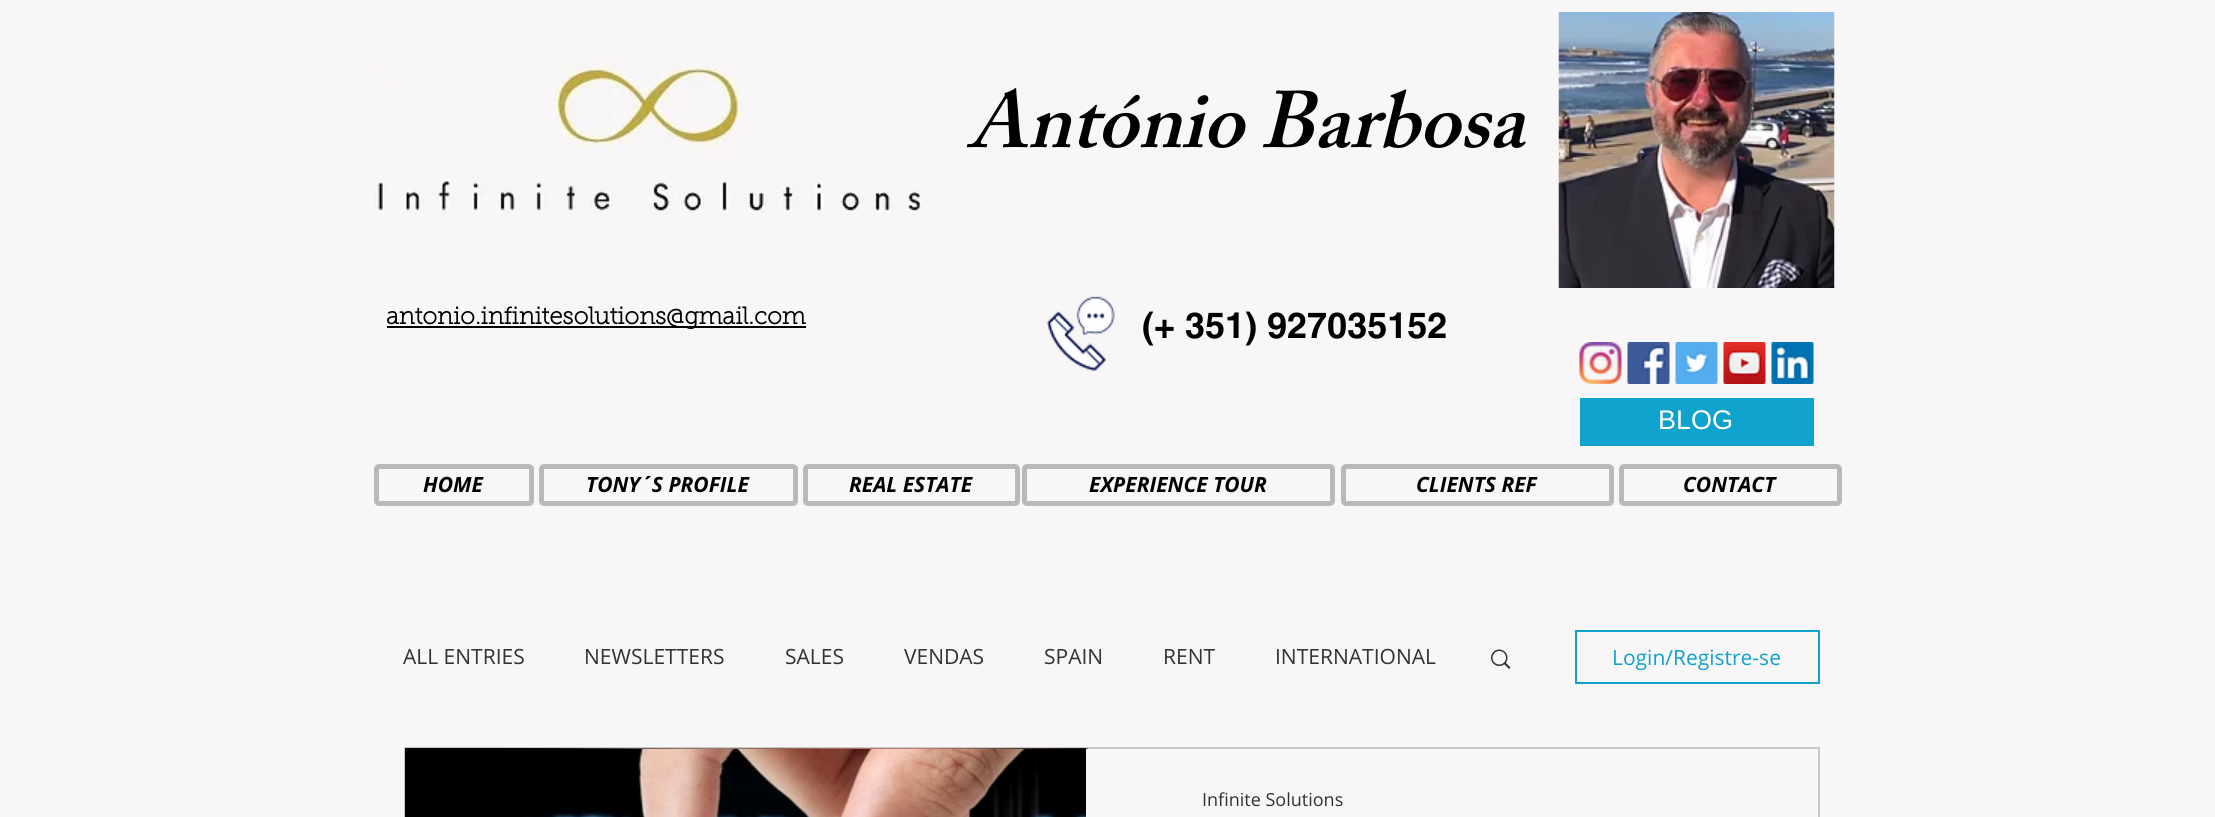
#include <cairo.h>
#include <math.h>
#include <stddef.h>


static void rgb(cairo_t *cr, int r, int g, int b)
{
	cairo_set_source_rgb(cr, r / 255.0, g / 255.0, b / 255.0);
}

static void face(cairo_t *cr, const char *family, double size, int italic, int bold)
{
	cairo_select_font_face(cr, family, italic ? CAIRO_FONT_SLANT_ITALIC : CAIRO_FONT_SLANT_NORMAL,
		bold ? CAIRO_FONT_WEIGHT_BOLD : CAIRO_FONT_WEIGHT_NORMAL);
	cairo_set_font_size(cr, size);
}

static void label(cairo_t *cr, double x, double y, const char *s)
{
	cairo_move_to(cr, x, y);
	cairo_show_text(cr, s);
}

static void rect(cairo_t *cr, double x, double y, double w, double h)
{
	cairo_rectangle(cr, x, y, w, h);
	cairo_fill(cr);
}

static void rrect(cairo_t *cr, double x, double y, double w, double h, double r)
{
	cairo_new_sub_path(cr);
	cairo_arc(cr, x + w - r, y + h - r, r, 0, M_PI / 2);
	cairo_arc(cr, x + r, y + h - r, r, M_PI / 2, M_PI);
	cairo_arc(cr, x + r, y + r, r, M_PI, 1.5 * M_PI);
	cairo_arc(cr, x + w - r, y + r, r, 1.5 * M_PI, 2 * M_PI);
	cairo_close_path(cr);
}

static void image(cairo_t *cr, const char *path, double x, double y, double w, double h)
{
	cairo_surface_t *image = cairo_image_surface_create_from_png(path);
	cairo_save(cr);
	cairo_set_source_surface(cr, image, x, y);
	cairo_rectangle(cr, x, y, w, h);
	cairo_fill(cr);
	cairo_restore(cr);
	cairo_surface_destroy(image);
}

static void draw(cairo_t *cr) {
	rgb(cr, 248, 246, 246);
	cairo_paint(cr);
	image(cr, "image0.png", 374, 62, 548, 151);
	face(cr, "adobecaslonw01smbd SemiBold", 79.5, 1, 0);
	rgb(cr, 0, 0, 0);
	label(cr, 968, 147, "António Barbosa");
	image(cr, "image1.png", 1558, 12, 277, 276);
	rect(cr, 387, 326, 419, 2);
	face(cr, "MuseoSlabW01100", 24, 0, 1);
	label(cr, 386, 324, "antonio.infinitesolutions@gmail.com");
	image(cr, "image2.png", 1046, 296, 69, 75);
	face(cr, "helvetica", 36, 0, 1);
	label(cr, 1142, 338, "(+ 351) 927035152");
	image(cr, "image3.png", 1579, 342, 43, 42);
	image(cr, "image4.png", 1627, 342, 43, 42);
	image(cr, "image5.png", 1675, 342, 43, 42);
	image(cr, "image6.png", 1723, 342, 43, 42);
	image(cr, "image7.png", 1771, 342, 43, 42);
	rgb(cr, 14, 162, 204);
	rect(cr, 1580, 398, 234, 48);
	face(cr, "Liberation Sans", 27, 0, 0);
	rgb(cr, 255, 255, 255);
	label(cr, 1658, 429, "BLOG");
	rrect(cr, 376.5, 466.5, 155, 37, 2.5);
	rgb(cr, 187, 184, 184);
	cairo_set_line_width(cr, 5);
	cairo_stroke(cr);
	face(cr, "Open Sans", 21, 1, 1);
	rgb(cr, 0, 0, 0);
	label(cr, 423, 492, "HOME");
	rrect(cr, 541.5, 466.5, 254, 37, 2.5);
	rgb(cr, 187, 184, 184);
	cairo_stroke(cr);
	rgb(cr, 0, 0, 0);
	label(cr, 586, 492, "TONY´S PROFILE");
	rrect(cr, 805.5, 466.5, 212, 37, 2.5);
	rgb(cr, 187, 184, 184);
	cairo_stroke(cr);
	rgb(cr, 0, 0, 0);
	label(cr, 849, 492, "REAL ESTATE");
	rrect(cr, 1024.5, 466.5, 308, 37, 2.5);
	rgb(cr, 187, 184, 184);
	cairo_stroke(cr);
	rgb(cr, 0, 0, 0);
	label(cr, 1089, 492, "EXPERIENCE TOUR");
	rrect(cr, 1343.5, 466.5, 268, 37, 2.5);
	rgb(cr, 187, 184, 184);
	cairo_stroke(cr);
	rgb(cr, 0, 0, 0);
	label(cr, 1416, 492, "CLIENTS REF");
	rrect(cr, 1621.5, 466.5, 218, 37, 2.5);
	rgb(cr, 187, 184, 184);
	cairo_stroke(cr);
	rgb(cr, 0, 0, 0);
	label(cr, 1683, 492, "CONTACT");
	face(cr, "Open Sans", 21, 0, 0);
	rgb(cr, 50, 50, 50);
	label(cr, 403, 664, "ALL ENTRIES");
	label(cr, 584, 664, "NEWSLETTERS");
	label(cr, 785, 664, "SALES");
	label(cr, 904, 664, "VENDAS");
	label(cr, 1044, 664, "SPAIN");
	label(cr, 1163, 664, "RENT");
	label(cr, 1275, 664, "INTERNATIONAL");
	image(cr, "image8.png", 1491, 649, 20, 20);
	cairo_rectangle(cr, 1576, 631, 243, 52);
	rgb(cr, 14, 162, 204);
	cairo_set_line_width(cr, 2);
	cairo_stroke(cr);
	label(cr, 1612, 665, "Login/Registre-se");
	cairo_rectangle(cr, 405, 748, 1414, 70);
	rgb(cr, 202, 200, 200);
	cairo_stroke(cr);
	image(cr, "image9.png", 405, 748, 683, 1);
	image(cr, "image10.png", 405, 749, 681, 68);
	face(cr, "Open Sans", 18, 0, 0);
	rgb(cr, 50, 50, 50);
	label(cr, 1202, 806, "Infinite Solutions");
}

int main(void) {
	cairo_surface_t *surface = cairo_image_surface_create(CAIRO_FORMAT_RGB24, 2215, 817);
	cairo_t *cr = cairo_create(surface);
	cairo_font_options_t *options = cairo_font_options_create();
	cairo_font_options_set_hint_metrics(options, CAIRO_HINT_METRICS_OFF);
	cairo_font_options_set_hint_style(options, CAIRO_HINT_STYLE_NONE);
	cairo_set_font_options(cr, options);
	cairo_set_miter_limit(cr, 4);
	draw(cr);
	cairo_surface_write_to_png(surface, "render.png");
	cairo_font_options_destroy(options);
	cairo_destroy(cr);
	cairo_surface_destroy(surface);
	return 0;
}
